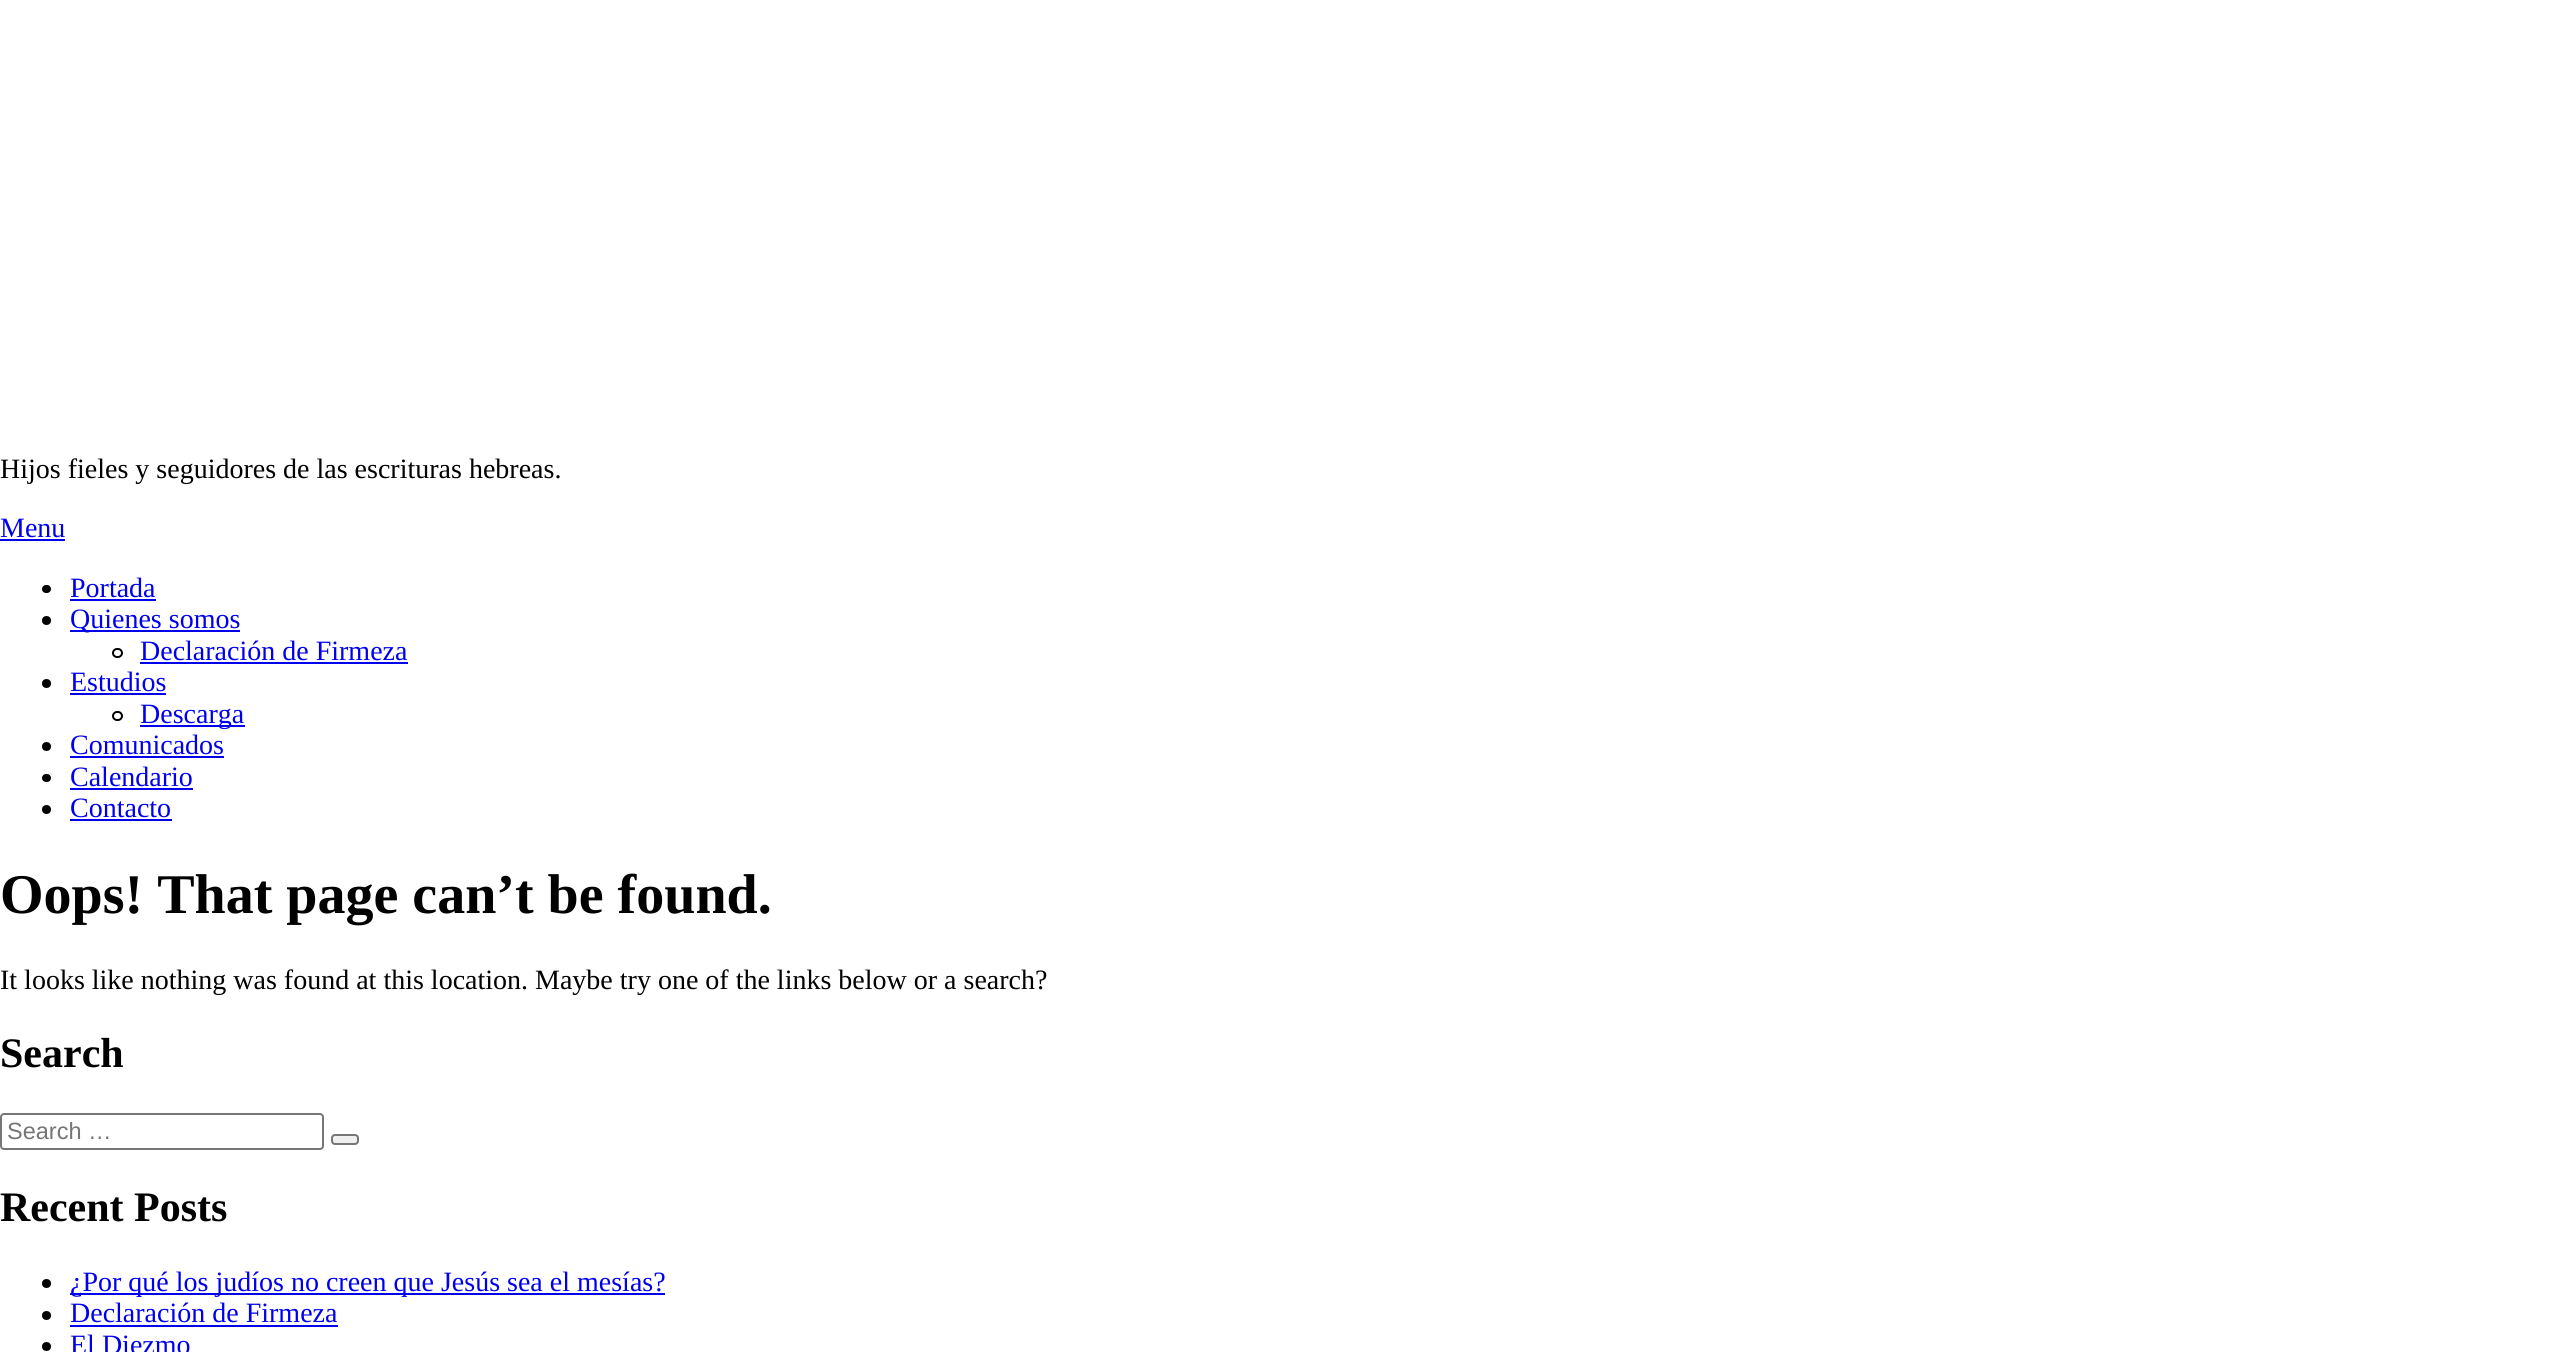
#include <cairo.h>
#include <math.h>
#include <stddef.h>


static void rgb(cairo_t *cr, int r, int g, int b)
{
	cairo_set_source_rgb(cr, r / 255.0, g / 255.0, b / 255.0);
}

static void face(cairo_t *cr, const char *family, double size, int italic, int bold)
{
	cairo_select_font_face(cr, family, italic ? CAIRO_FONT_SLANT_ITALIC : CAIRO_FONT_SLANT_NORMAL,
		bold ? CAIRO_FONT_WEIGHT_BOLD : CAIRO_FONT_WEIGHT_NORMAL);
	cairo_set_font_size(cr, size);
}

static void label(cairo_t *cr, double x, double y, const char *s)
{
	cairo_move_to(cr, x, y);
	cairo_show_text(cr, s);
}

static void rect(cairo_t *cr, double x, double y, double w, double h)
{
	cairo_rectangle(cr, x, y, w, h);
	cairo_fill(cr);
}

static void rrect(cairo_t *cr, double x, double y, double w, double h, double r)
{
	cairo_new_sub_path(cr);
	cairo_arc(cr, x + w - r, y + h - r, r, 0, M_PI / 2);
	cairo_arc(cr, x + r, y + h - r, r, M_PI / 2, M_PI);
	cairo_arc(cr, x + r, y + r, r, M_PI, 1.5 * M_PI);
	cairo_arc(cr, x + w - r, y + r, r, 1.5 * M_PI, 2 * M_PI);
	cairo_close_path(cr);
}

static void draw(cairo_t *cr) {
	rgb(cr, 255, 255, 255);
	cairo_paint(cr);
	face(cr, "Liberation Serif", 28, 0, 0);
	rgb(cr, 0, 0, 0);
	label(cr, 0, 478, "Hijos fieles y seguidores de las escrituras hebreas.");
	rgb(cr, 0, 0, 238);
	label(cr, 0, 537, "Menu");
	rect(cr, 0, 539, 65, 2);
	rgb(cr, 0, 0, 0);
	rrect(cr, 42, 585, 9, 8, 4);
	cairo_fill(cr);
	rgb(cr, 0, 0, 238);
	label(cr, 70, 597, "Portada");
	rect(cr, 70, 599, 86, 2);
	rgb(cr, 0, 0, 0);
	cairo_new_path(cr);
	cairo_arc(cr, 46.5, 620.5, 4.5, 0, 2 * M_PI);
	cairo_fill(cr);
	rgb(cr, 0, 0, 238);
	rect(cr, 70, 630, 170, 2);
	label(cr, 70, 628, "Quienes somos");
	rrect(cr, 113, 649, 9, 8, 4);
	rgb(cr, 0, 0, 0);
	cairo_stroke(cr);
	rgb(cr, 0, 0, 238);
	label(cr, 140, 660, "Declaración de Firmeza");
	rect(cr, 140, 662, 268, 2);
	rgb(cr, 0, 0, 0);
	cairo_new_path(cr);
	cairo_arc(cr, 46.5, 683.5, 4.5, 0, 2 * M_PI);
	cairo_fill(cr);
	rgb(cr, 0, 0, 238);
	label(cr, 70, 691, "Estudios");
	rect(cr, 70, 693, 96, 2);
	rrect(cr, 113, 712, 9, 8, 4);
	rgb(cr, 0, 0, 0);
	cairo_stroke(cr);
	rgb(cr, 0, 0, 238);
	rect(cr, 140, 725, 105, 2);
	label(cr, 140, 723, "Descarga");
	rgb(cr, 0, 0, 0);
	cairo_new_path(cr);
	cairo_arc(cr, 46.5, 746.5, 4.5, 0, 2 * M_PI);
	cairo_fill(cr);
	rgb(cr, 0, 0, 238);
	label(cr, 70, 754, "Comunicados");
	rect(cr, 70, 756, 154, 2);
	rgb(cr, 0, 0, 0);
	rrect(cr, 42, 774, 9, 8, 4);
	cairo_fill(cr);
	rgb(cr, 0, 0, 238);
	label(cr, 70, 786, "Calendario");
	rect(cr, 70, 788, 123, 2);
	rgb(cr, 0, 0, 0);
	cairo_new_path(cr);
	cairo_arc(cr, 46.5, 809.5, 4.5, 0, 2 * M_PI);
	cairo_fill(cr);
	rgb(cr, 0, 0, 238);
	label(cr, 70, 817, "Contacto");
	rect(cr, 70, 819, 102, 2);
	face(cr, "Liberation Serif", 56, 0, 1);
	rgb(cr, 0, 0, 0);
	label(cr, 0, 913, "Oops! That page can’t be found.");
	face(cr, "Liberation Serif", 28, 0, 0);
	label(cr, 0, 989, "It looks like nothing was found at this location. Maybe try one of the links below or a search?");
	face(cr, "Liberation Serif", 42, 0, 1);
	label(cr, 0, 1067, "Search");
	rrect(cr, 1, 1114, 322, 35, 3);
	rgb(cr, 118, 118, 118);
	cairo_stroke(cr);
	face(cr, "Liberation Sans", 23.5, 0, 0);
	rgb(cr, 117, 117, 117);
	label(cr, 7, 1139, "Search …");
	rgb(cr, 239, 239, 239);
	rrect(cr, 332, 1135, 26, 9, 3);
	cairo_fill_preserve(cr);
	rgb(cr, 118, 118, 118);
	cairo_stroke(cr);
	face(cr, "Liberation Serif", 42, 0, 1);
	rgb(cr, 0, 0, 0);
	label(cr, 0, 1221, "Recent Posts");
	cairo_new_path(cr);
	cairo_arc(cr, 46.5, 1283.5, 4.5, 0, 2 * M_PI);
	cairo_fill(cr);
	rgb(cr, 0, 0, 238);
	rect(cr, 70, 1293, 595, 2);
	face(cr, "Liberation Serif", 28, 0, 0);
	label(cr, 70, 1291, "¿Por qué los judíos no creen que Jesús sea el mesías?");
	rgb(cr, 0, 0, 0);
	cairo_new_path(cr);
	cairo_arc(cr, 46.5, 1315.5, 4.5, 0, 2 * M_PI);
	cairo_fill(cr);
	rgb(cr, 0, 0, 238);
	label(cr, 70, 1322, "Declaración de Firmeza");
	rect(cr, 70, 1325, 268, 2);
	rgb(cr, 0, 0, 0);
	cairo_new_path(cr);
	cairo_arc(cr, 46.5, 1346.5, 4.5, 0, 2 * M_PI);
	cairo_fill(cr);
	rgb(cr, 0, 0, 238);
	label(cr, 70, 1354, "El Diezmo");
}

int main(void) {
	cairo_surface_t *surface = cairo_image_surface_create(CAIRO_FORMAT_RGB24, 2557, 1352);
	cairo_t *cr = cairo_create(surface);
	cairo_font_options_t *options = cairo_font_options_create();
	cairo_font_options_set_hint_metrics(options, CAIRO_HINT_METRICS_OFF);
	cairo_font_options_set_hint_style(options, CAIRO_HINT_STYLE_NONE);
	cairo_set_font_options(cr, options);
	cairo_set_miter_limit(cr, 4);
	draw(cr);
	cairo_surface_write_to_png(surface, "render.png");
	cairo_font_options_destroy(options);
	cairo_destroy(cr);
	cairo_surface_destroy(surface);
	return 0;
}
